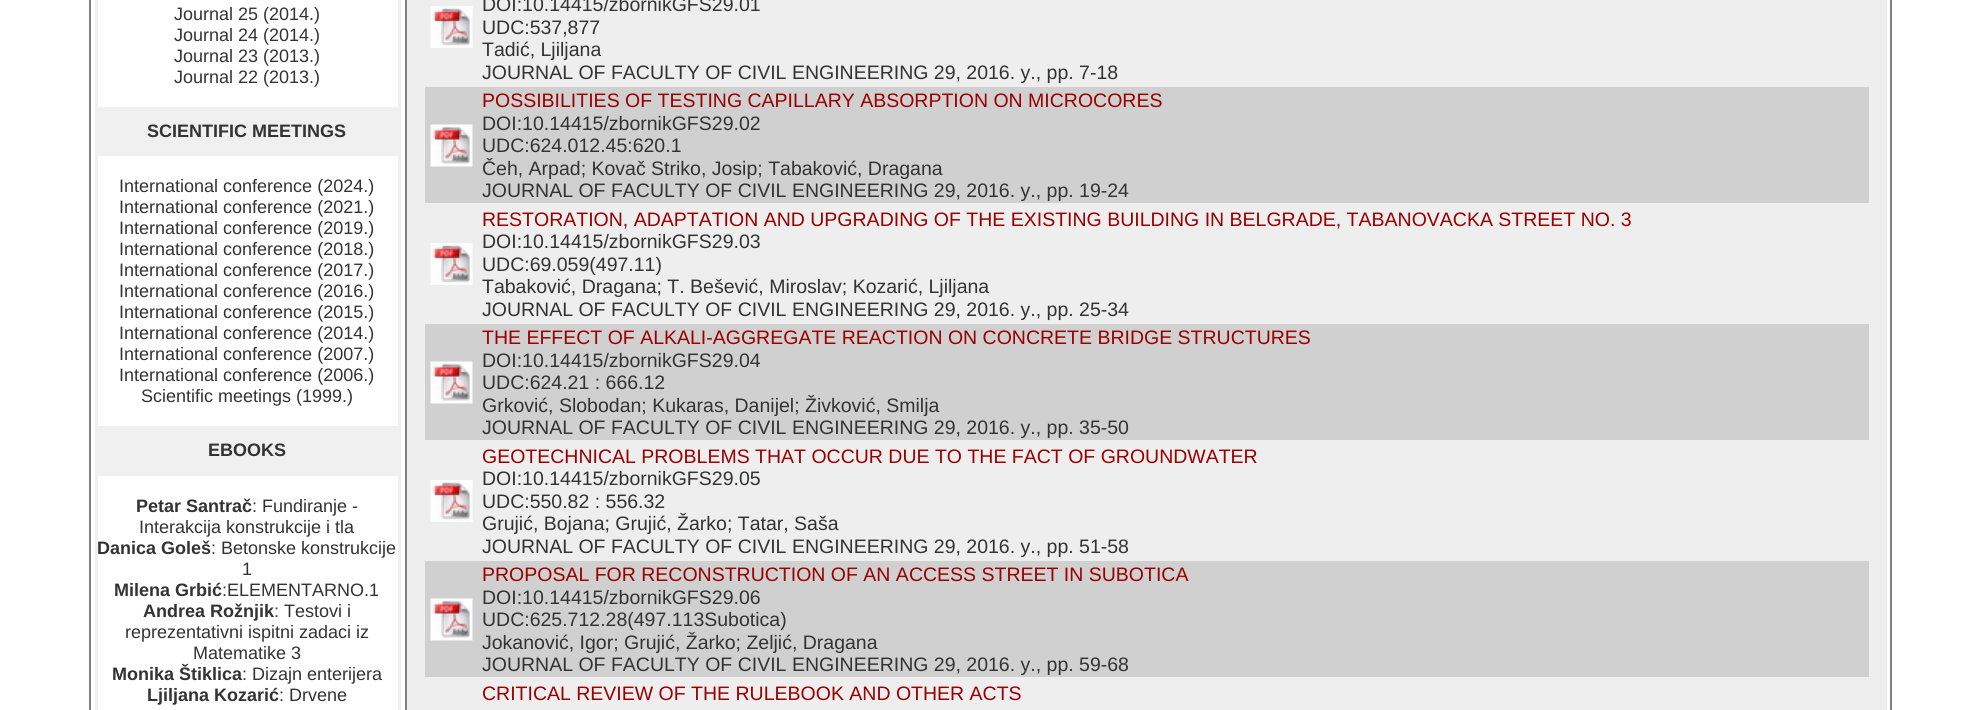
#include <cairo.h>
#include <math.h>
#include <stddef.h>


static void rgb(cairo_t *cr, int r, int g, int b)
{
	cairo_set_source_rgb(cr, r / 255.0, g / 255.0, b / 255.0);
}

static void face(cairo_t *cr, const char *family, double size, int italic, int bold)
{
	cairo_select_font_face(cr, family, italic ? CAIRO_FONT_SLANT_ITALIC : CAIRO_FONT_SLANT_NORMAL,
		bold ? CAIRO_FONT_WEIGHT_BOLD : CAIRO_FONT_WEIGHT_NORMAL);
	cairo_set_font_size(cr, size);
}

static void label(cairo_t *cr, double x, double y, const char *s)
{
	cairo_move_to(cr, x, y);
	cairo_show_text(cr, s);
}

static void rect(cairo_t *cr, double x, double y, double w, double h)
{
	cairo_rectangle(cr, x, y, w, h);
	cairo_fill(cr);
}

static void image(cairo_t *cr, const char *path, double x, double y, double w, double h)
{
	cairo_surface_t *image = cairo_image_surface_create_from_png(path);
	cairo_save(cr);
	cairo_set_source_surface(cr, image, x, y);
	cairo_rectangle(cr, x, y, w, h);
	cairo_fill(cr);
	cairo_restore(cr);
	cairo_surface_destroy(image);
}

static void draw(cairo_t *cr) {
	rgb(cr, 255, 255, 255);
	cairo_paint(cr);
	cairo_rectangle(cr, 90, -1, 1801, 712);
	rgb(cr, 128, 128, 128);
	cairo_stroke(cr);
	cairo_rectangle(cr, 96.5, -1.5, 303, 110);
	rgb(cr, 240, 240, 240);
	cairo_set_line_width(cr, 3);
	cairo_stroke(cr);
	face(cr, "Liberation Sans", 18, 0, 0);
	rgb(cr, 51, 51, 51);
	label(cr, 174, 20, "Journal 25 (2014.)");
	label(cr, 174, 41, "Journal 24 (2014.)");
	label(cr, 174, 62, "Journal 23 (2013.)");
	label(cr, 174, 83, "Journal 22 (2013.)");
	rgb(cr, 240, 240, 240);
	rect(cr, 95, 110, 306, 43);
	face(cr, "Liberation Sans", 18, 0, 1);
	rgb(cr, 51, 51, 51);
	label(cr, 147, 137, "SCIENTIFIC MEETINGS");
	cairo_rectangle(cr, 96.5, 154.5, 303, 273);
	rgb(cr, 240, 240, 240);
	cairo_stroke(cr);
	face(cr, "Liberation Sans", 18, 0, 0);
	rgb(cr, 51, 51, 51);
	label(cr, 119, 192, "International conference (2024.)");
	label(cr, 119, 213, "International conference (2021.)");
	label(cr, 119, 234, "International conference (2019.)");
	label(cr, 119, 255, "International conference (2018.)");
	label(cr, 119, 276, "International conference (2017.)");
	label(cr, 119, 297, "International conference (2016.)");
	label(cr, 119, 318, "International conference (2015.)");
	label(cr, 119, 339, "International conference (2014.)");
	label(cr, 119, 360, "International conference (2007.)");
	label(cr, 119, 381, "International conference (2006.)");
	label(cr, 141, 402, "Scientific meetings (1999.)");
	rgb(cr, 240, 240, 240);
	rect(cr, 95, 429, 306, 44);
	face(cr, "Liberation Sans", 18, 0, 1);
	rgb(cr, 51, 51, 51);
	label(cr, 208, 456, "EBOOKS");
	cairo_rectangle(cr, 96.5, 474.5, 303, 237);
	rgb(cr, 240, 240, 240);
	cairo_stroke(cr);
	rgb(cr, 51, 51, 51);
	label(cr, 136, 512, "Petar Santrač");
	face(cr, "Liberation Sans", 18, 0, 0);
	label(cr, 252, 512, ": Fundiranje -");
	label(cr, 139, 533, "Interakcija konstrukcije i tla");
	face(cr, "Liberation Sans", 18, 0, 1);
	label(cr, 97, 554, "Danica Goleš");
	face(cr, "Liberation Sans", 18, 0, 0);
	label(cr, 211, 554, ": Betonske konstrukcije");
	label(cr, 242, 575, "1");
	face(cr, "Liberation Sans", 18, 0, 1);
	label(cr, 114, 596, "Milena Grbić");
	face(cr, "Liberation Sans", 18, 0, 0);
	label(cr, 222, 596, ":ELEMENTARNO.1");
	face(cr, "Liberation Sans", 18, 0, 1);
	label(cr, 143, 617, "Andrea Rožnjik");
	face(cr, "Liberation Sans", 18, 0, 0);
	label(cr, 274, 617, ": Testovi i");
	label(cr, 125, 638, "reprezentativni ispitni zadaci iz");
	label(cr, 193, 659, "Matematike 3");
	face(cr, "Liberation Sans", 18, 0, 1);
	label(cr, 112, 680, "Monika Štiklica");
	face(cr, "Liberation Sans", 18, 0, 0);
	label(cr, 242, 680, ": Dizajn enterijera");
	face(cr, "Liberation Sans", 18, 0, 1);
	label(cr, 147, 701, "Ljiljana Kozarić");
	face(cr, "Liberation Sans", 18, 0, 0);
	label(cr, 279, 701, ": Drvene");
	rgb(cr, 238, 238, 238);
	rect(cr, 407, 0, 1480, 710);
	rgb(cr, 128, 128, 128);
	rect(cr, 405, 0, 2, 710);
	image(cr, "image0.png", 430, 6, 43, 42);
	face(cr, "Liberation Sans", 19.5, 0, 0);
	rgb(cr, 51, 51, 51);
	label(cr, 482, 11, "DOI:10.14415/zbornikGFS29.01");
	label(cr, 482, 34, "UDC:537,877");
	label(cr, 482, 56, "Tadić, Ljiljana");
	label(cr, 482, 79, "JOURNAL OF FACULTY OF CIVIL ENGINEERING 29, 2016. y., pp. 7-18");
	rgb(cr, 208, 208, 208);
	rect(cr, 425, 87, 1444, 116);
	image(cr, "image1.png", 430, 124, 43, 43);
	rgb(cr, 153, 0, 0);
	label(cr, 482, 107, "POSSIBILITIES OF TESTING CAPILLARY ABSORPTION ON MICROCORES");
	rgb(cr, 51, 51, 51);
	label(cr, 482, 130, "DOI:10.14415/zbornikGFS29.02");
	label(cr, 482, 152, "UDC:624.012.45:620.1");
	label(cr, 482, 175, "Čeh, Arpad; Kovač Striko, Josip; Tabaković, Dragana");
	label(cr, 482, 197, "JOURNAL OF FACULTY OF CIVIL ENGINEERING 29, 2016. y., pp. 19-24");
	image(cr, "image0.png", 430, 243, 43, 42);
	rgb(cr, 153, 0, 0);
	label(cr, 482, 226, "RESTORATION, ADAPTATION AND UPGRADING OF THE EXISTING BUILDING IN BELGRADE, TABANOVACKA STREET NO. 3");
	rgb(cr, 51, 51, 51);
	label(cr, 482, 248, "DOI:10.14415/zbornikGFS29.03");
	label(cr, 482, 271, "UDC:69.059(497.11)");
	label(cr, 482, 293, "Tabaković, Dragana; T. Bešević, Miroslav; Kozarić, Ljiljana");
	label(cr, 482, 316, "JOURNAL OF FACULTY OF CIVIL ENGINEERING 29, 2016. y., pp. 25-34");
	rgb(cr, 208, 208, 208);
	rect(cr, 425, 324, 1444, 116);
	image(cr, "image1.png", 430, 361, 43, 43);
	rgb(cr, 153, 0, 0);
	label(cr, 482, 344, "THE EFFECT OF ALKALI-AGGREGATE REACTION ON CONCRETE BRIDGE STRUCTURES");
	rgb(cr, 51, 51, 51);
	label(cr, 482, 367, "DOI:10.14415/zbornikGFS29.04");
	label(cr, 482, 389, "UDC:624.21 : 666.12");
	label(cr, 482, 412, "Grković, Slobodan; Kukaras, Danijel; Živković, Smilja");
	label(cr, 482, 434, "JOURNAL OF FACULTY OF CIVIL ENGINEERING 29, 2016. y., pp. 35-50");
	image(cr, "image0.png", 430, 480, 43, 42);
	rgb(cr, 153, 0, 0);
	label(cr, 482, 463, "GEOTECHNICAL PROBLEMS THAT OCCUR DUE TO THE FACT OF GROUNDWATER");
	rgb(cr, 51, 51, 51);
	label(cr, 482, 485, "DOI:10.14415/zbornikGFS29.05");
	label(cr, 482, 508, "UDC:550.82 : 556.32");
	label(cr, 482, 530, "Grujić, Bojana; Grujić, Žarko; Tatar, Saša");
	label(cr, 482, 553, "JOURNAL OF FACULTY OF CIVIL ENGINEERING 29, 2016. y., pp. 51-58");
	rgb(cr, 208, 208, 208);
	rect(cr, 425, 561, 1444, 116);
	image(cr, "image1.png", 430, 598, 43, 43);
	rgb(cr, 153, 0, 0);
	label(cr, 482, 581, "PROPOSAL FOR RECONSTRUCTION OF AN ACCESS STREET IN SUBOTICA");
	rgb(cr, 51, 51, 51);
	label(cr, 482, 604, "DOI:10.14415/zbornikGFS29.06");
	label(cr, 482, 626, "UDC:625.712.28(497.113Subotica)");
	label(cr, 482, 649, "Jokanović, Igor; Grujić, Žarko; Zeljić, Dragana");
	label(cr, 482, 671, "JOURNAL OF FACULTY OF CIVIL ENGINEERING 29, 2016. y., pp. 59-68");
	rgb(cr, 153, 0, 0);
	label(cr, 482, 700, "CRITICAL REVIEW OF THE RULEBOOK AND OTHER ACTS");
}

int main(void) {
	cairo_surface_t *surface = cairo_image_surface_create(CAIRO_FORMAT_RGB24, 1978, 710);
	cairo_t *cr = cairo_create(surface);
	cairo_font_options_t *options = cairo_font_options_create();
	cairo_font_options_set_hint_metrics(options, CAIRO_HINT_METRICS_OFF);
	cairo_font_options_set_hint_style(options, CAIRO_HINT_STYLE_NONE);
	cairo_set_font_options(cr, options);
	cairo_set_miter_limit(cr, 4);
	draw(cr);
	cairo_surface_write_to_png(surface, "render.png");
	cairo_font_options_destroy(options);
	cairo_destroy(cr);
	cairo_surface_destroy(surface);
	return 0;
}
